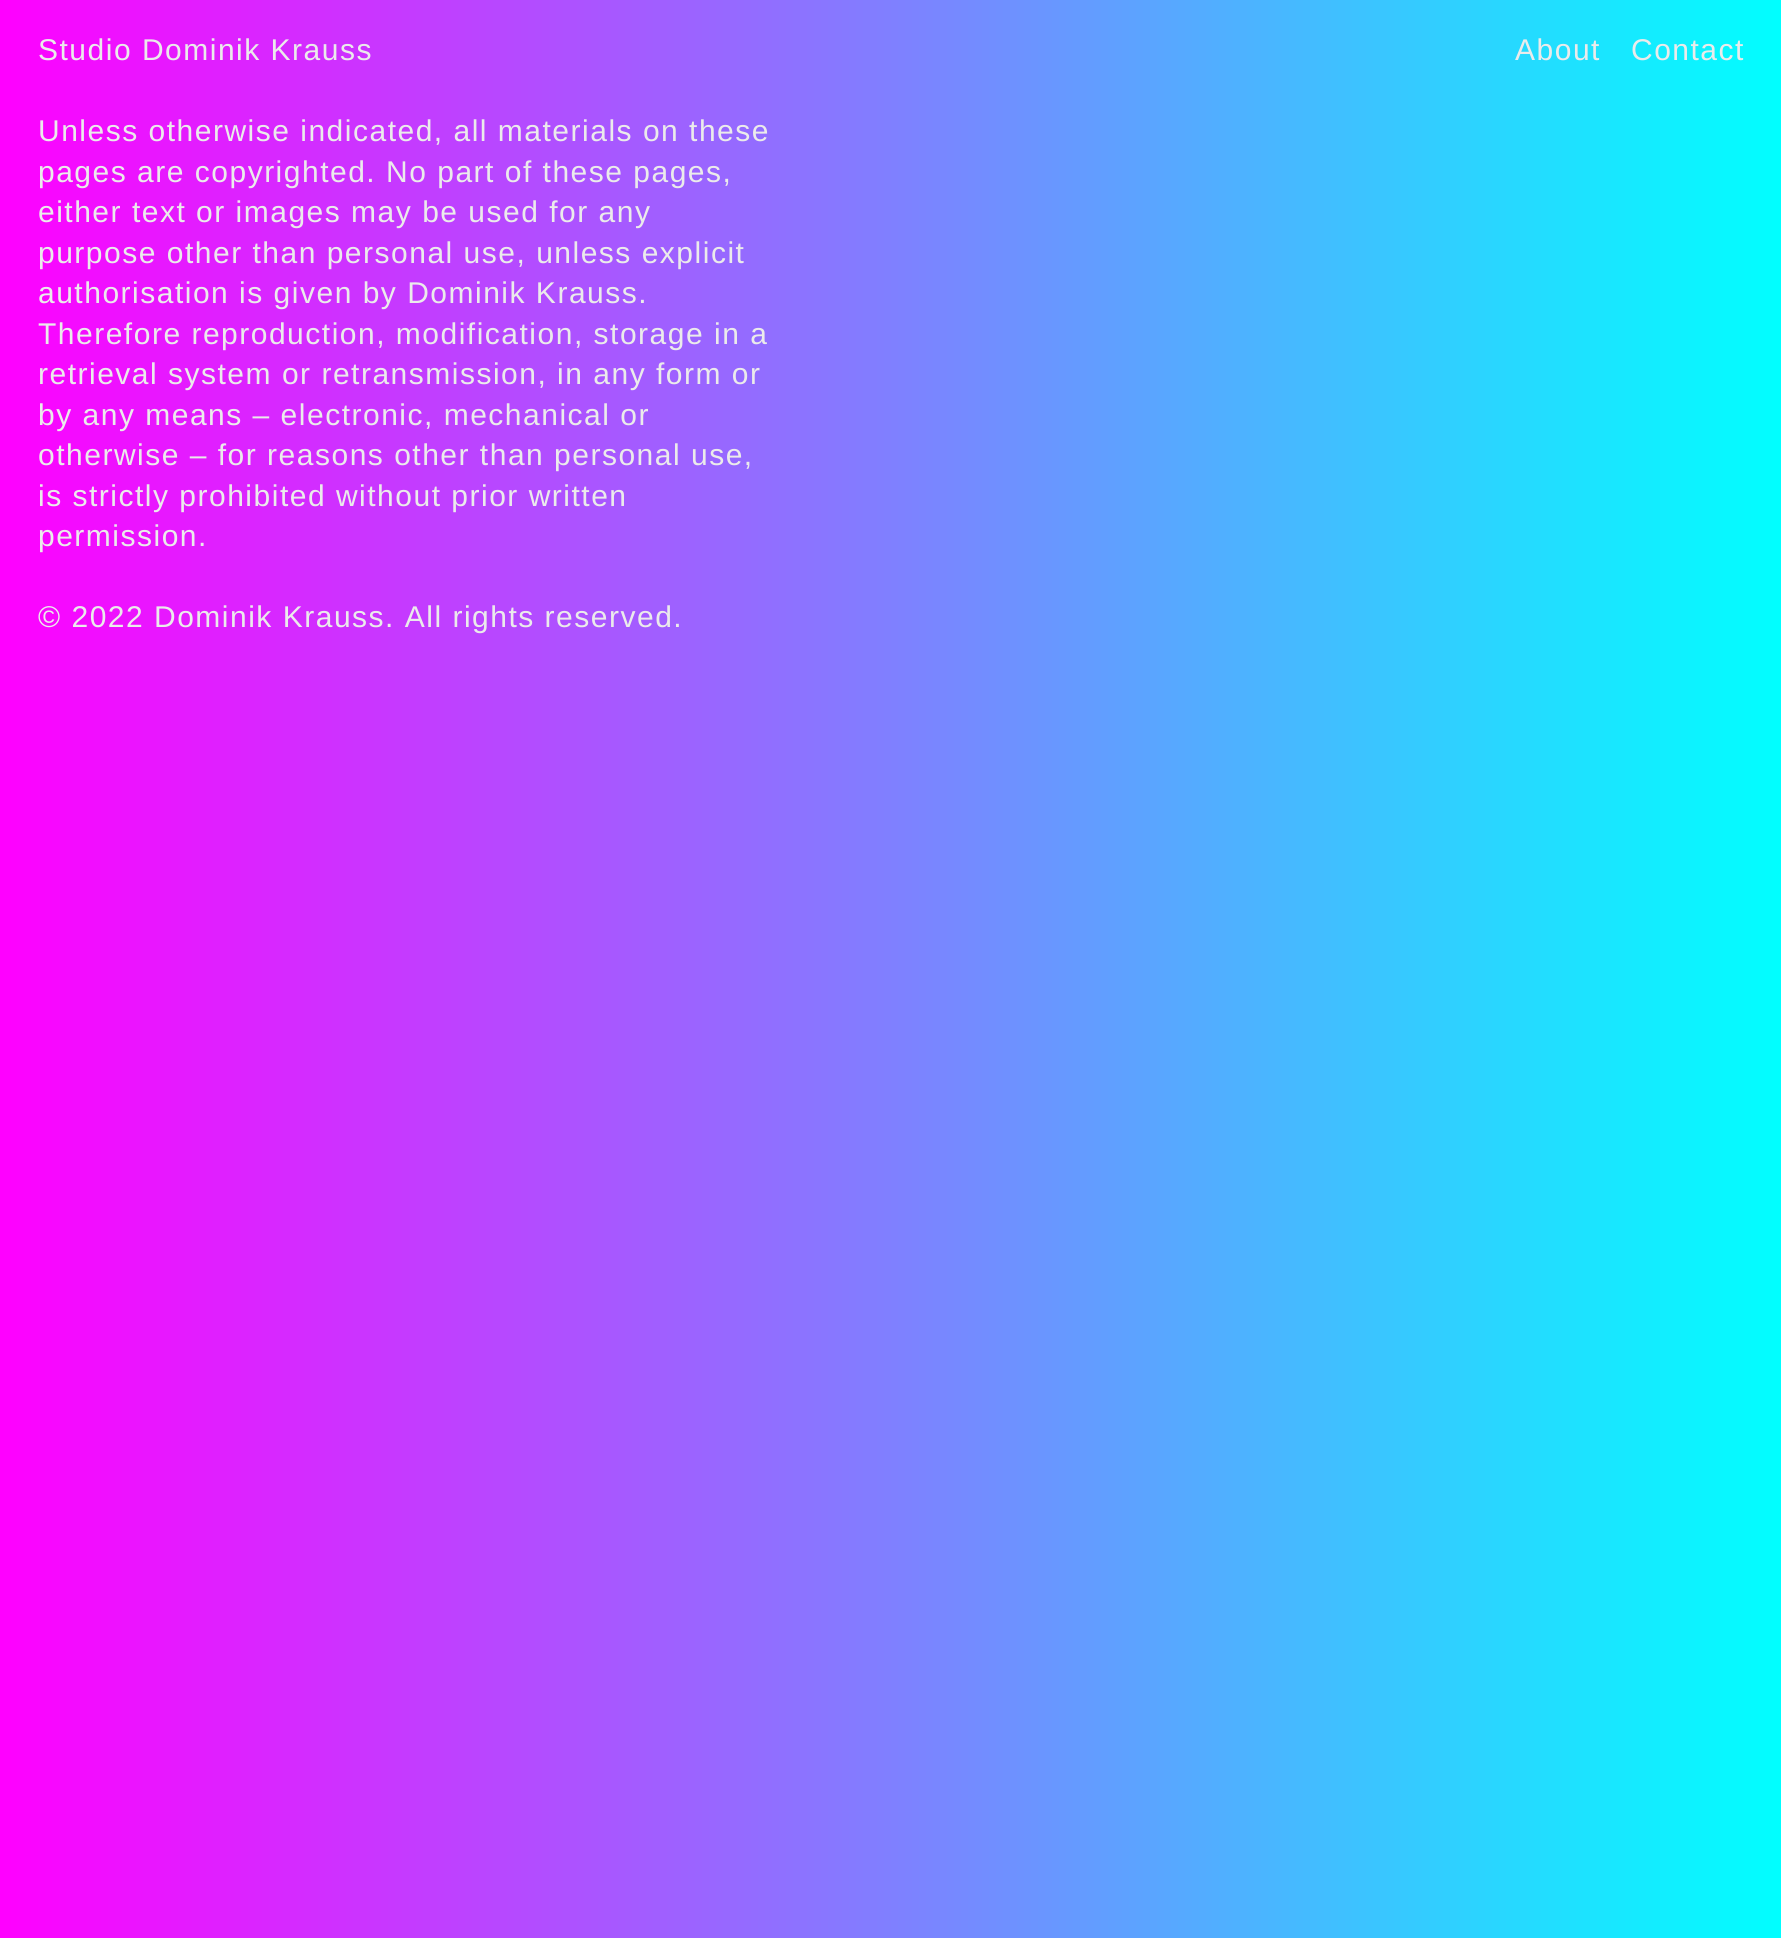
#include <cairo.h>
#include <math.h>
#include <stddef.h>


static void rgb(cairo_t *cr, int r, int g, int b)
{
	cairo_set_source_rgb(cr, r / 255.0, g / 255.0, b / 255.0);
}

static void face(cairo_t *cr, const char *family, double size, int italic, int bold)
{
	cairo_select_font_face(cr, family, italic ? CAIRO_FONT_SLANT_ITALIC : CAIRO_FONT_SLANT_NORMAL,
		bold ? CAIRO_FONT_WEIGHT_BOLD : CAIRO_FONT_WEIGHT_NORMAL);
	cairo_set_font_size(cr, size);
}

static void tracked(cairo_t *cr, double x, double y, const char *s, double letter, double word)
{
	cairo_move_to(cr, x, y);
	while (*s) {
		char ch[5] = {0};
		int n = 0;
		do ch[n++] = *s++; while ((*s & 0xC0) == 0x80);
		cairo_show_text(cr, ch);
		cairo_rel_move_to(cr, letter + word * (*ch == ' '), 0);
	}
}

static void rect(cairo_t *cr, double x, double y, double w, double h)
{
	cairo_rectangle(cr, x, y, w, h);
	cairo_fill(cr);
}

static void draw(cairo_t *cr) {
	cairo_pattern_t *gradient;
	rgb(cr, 255, 255, 255);
	cairo_paint(cr);
	gradient = cairo_pattern_create_linear(0, 969, 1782, 969);
	cairo_pattern_add_color_stop_rgba(gradient, 0, 1, 0, 1, 1);
	cairo_pattern_add_color_stop_rgba(gradient, 1, 0, 1, 1, 1);
	cairo_set_source(cr, gradient);
	cairo_pattern_destroy(gradient);
	rect(cr, 0, 0, 1781, 1938);
	face(cr, "Liberation Sans", 30, 0, 0);
	rgb(cr, 235, 235, 235);
	tracked(cr, 38, 60, "Studio Dominik Krauss", 1.5, 0);
	tracked(cr, 38, 141, "Unless otherwise indicated, all materials on these", 1.5, 0);
	tracked(cr, 38, 182, "pages are copyrighted. No part of these pages,", 1.5, 0);
	tracked(cr, 38, 222, "either text or images may be used for any", 1.5, 0);
	tracked(cr, 38, 263, "purpose other than personal use, unless explicit", 1.5, 0);
	tracked(cr, 38, 303, "authorisation is given by Dominik Krauss.", 1.5, 0);
	tracked(cr, 38, 344, "Therefore reproduction, modification, storage in a", 1.5, 0);
	tracked(cr, 38, 384, "retrieval system or retransmission, in any form or", 1.5, 0);
	tracked(cr, 38, 425, "by any means – electronic, mechanical or", 1.5, 0);
	tracked(cr, 38, 465, "otherwise – for reasons other than personal use,", 1.5, 0);
	tracked(cr, 38, 506, "is strictly prohibited without prior written", 1.5, 0);
	tracked(cr, 38, 546, "permission.", 1.5, 0);
	tracked(cr, 38, 627, "© 2022 Dominik Krauss. All rights reserved.", 1.5, 0);
	tracked(cr, 1515, 60, "About", 1.5, 0);
	tracked(cr, 1631, 60, "Contact", 1.5, 0);
}

int main(void) {
	cairo_surface_t *surface = cairo_image_surface_create(CAIRO_FORMAT_RGB24, 1781, 1938);
	cairo_t *cr = cairo_create(surface);
	cairo_font_options_t *options = cairo_font_options_create();
	cairo_font_options_set_hint_metrics(options, CAIRO_HINT_METRICS_OFF);
	cairo_font_options_set_hint_style(options, CAIRO_HINT_STYLE_NONE);
	cairo_set_font_options(cr, options);
	cairo_set_miter_limit(cr, 4);
	draw(cr);
	cairo_surface_write_to_png(surface, "render.png");
	cairo_font_options_destroy(options);
	cairo_destroy(cr);
	cairo_surface_destroy(surface);
	return 0;
}
